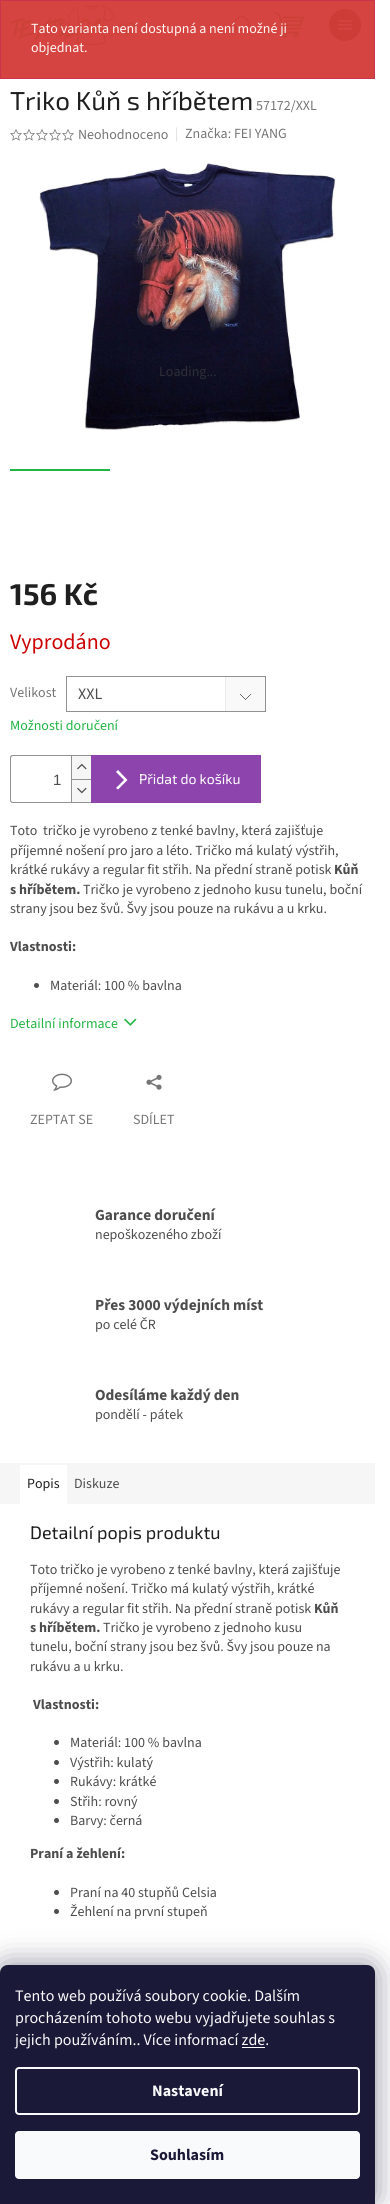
#include <cairo.h>
#include <math.h>
#include <stddef.h>


static void rgb(cairo_t *cr, int r, int g, int b)
{
	cairo_set_source_rgb(cr, r / 255.0, g / 255.0, b / 255.0);
}

static void face(cairo_t *cr, const char *family, double size, int italic, int bold)
{
	cairo_select_font_face(cr, family, italic ? CAIRO_FONT_SLANT_ITALIC : CAIRO_FONT_SLANT_NORMAL,
		bold ? CAIRO_FONT_WEIGHT_BOLD : CAIRO_FONT_WEIGHT_NORMAL);
	cairo_set_font_size(cr, size);
}

static void label(cairo_t *cr, double x, double y, const char *s)
{
	cairo_move_to(cr, x, y);
	cairo_show_text(cr, s);
}

static void rect(cairo_t *cr, double x, double y, double w, double h)
{
	cairo_rectangle(cr, x, y, w, h);
	cairo_fill(cr);
}

static void rrect(cairo_t *cr, double x, double y, double w, double h, double r)
{
	cairo_new_sub_path(cr);
	cairo_arc(cr, x + w - r, y + h - r, r, 0, M_PI / 2);
	cairo_arc(cr, x + r, y + h - r, r, M_PI / 2, M_PI);
	cairo_arc(cr, x + r, y + r, r, M_PI, 1.5 * M_PI);
	cairo_arc(cr, x + w - r, y + r, r, 1.5 * M_PI, 2 * M_PI);
	cairo_close_path(cr);
}

static void soft_shadow(cairo_t *cr, double x, double y, double w, double h, double r, double blur, double alpha)
{
	cairo_push_group_with_content(cr, CAIRO_CONTENT_ALPHA);
	cairo_set_operator(cr, CAIRO_OPERATOR_SOURCE);
	for (int i = 15; i >= -15 && fmin(w, h) + blur * i / 3 > 0; i -= 2) {
		double e = blur * i / 6;
		cairo_set_source_rgba(cr, 0, 0, 0, alpha * erfc((i - 1) / 8.5) / 2);
		rrect(cr, x - e, y - e, w + 2 * e, h + 2 * e, fmax(0, fmin(r + e + blur * .6, fmin(w, h) / 2 + e)));
		cairo_fill(cr);
	}
	cairo_pattern_t *soft = cairo_pop_group(cr);
	cairo_mask(cr, soft);
	cairo_pattern_destroy(soft);
}

static void image(cairo_t *cr, const char *path, double x, double y, double w, double h)
{
	cairo_surface_t *image = cairo_image_surface_create_from_png(path);
	cairo_save(cr);
	cairo_set_source_surface(cr, image, x, y);
	cairo_rectangle(cr, x, y, w, h);
	cairo_fill(cr);
	cairo_restore(cr);
	cairo_surface_destroy(image);
}

static void draw(cairo_t *cr) {
	rgb(cr, 255, 255, 255);
	cairo_paint(cr);
	rgb(cr, 213, 68, 64);
	rect(cr, 1, 1, 373, 77);
	image(cr, "image0.png", 10, 5, 125, 41);
	image(cr, "image1.png", 274, 12, 30, 26);
	image(cr, "image2.png", 231, 16, 18, 19);
	rgb(cr, 206, 60, 56);
	cairo_arc(cr, 345, 25, 16, 0, 2 * M_PI);
	cairo_fill(cr);
	image(cr, "image3.png", 338, 20, 14, 10);
	cairo_rectangle(cr, 0.5, 0.5, 374, 78);
	rgb(cr, 199, 54, 75);
	cairo_set_line_width(cr, 1);
	cairo_stroke(cr);
	face(cr, "Source Sans 3", 14, 0, 0);
	rgb(cr, 253, 246, 245);
	label(cr, 31, 33, "Tato varianta není dostupná a není možné ji");
	label(cr, 31, 52, "objednat.");
	face(cr, "Exo 2", 26, 0, 0);
	rgb(cr, 31, 31, 31);
	label(cr, 10, 110, "Triko Kůň s hříbětem");
	face(cr, "Source Sans 3", 14, 0, 0);
	rgb(cr, 118, 118, 118);
	label(cr, 256, 110, "57172/XXL");
	image(cr, "image4.png", 10, 129, 12, 12);
	image(cr, "image4.png", 23, 129, 12, 12);
	image(cr, "image4.png", 36, 129, 12, 12);
	image(cr, "image4.png", 49, 129, 12, 12);
	image(cr, "image4.png", 62, 129, 12, 12);
	label(cr, 78, 139, "Neohodnoceno");
	rgb(cr, 218, 218, 218);
	label(cr, 175, 138, "|");
	rgb(cr, 118, 118, 118);
	label(cr, 185, 138, "Značka: FEI YANG");
	image(cr, "image5.png", 39, 163, 297, 267);
	rgb(cr, 45, 46, 56);
	label(cr, 159, 376, "Loading...");
	rgb(cr, 35, 180, 68);
	rect(cr, 10, 469, 100, 2);
	face(cr, "Exo 2", 30, 0, 1);
	rgb(cr, 31, 31, 31);
	label(cr, 10, 605, "156 Kč");
	face(cr, "Source Sans 3", 22, 0, 0);
	rgb(cr, 203, 0, 0);
	label(cr, 10, 649, "Vyprodáno");
	face(cr, "Source Sans 3", 14, 0, 0);
	rgb(cr, 118, 118, 118);
	label(cr, 10, 697, "Velikost");
	image(cr, "image6.png", 225, 677, 40, 34);
	cairo_rectangle(cr, 66.5, 676.5, 199, 35);
	rgb(cr, 145, 145, 145);
	cairo_stroke(cr);
	face(cr, "Source Sans 3", 16, 0, 0);
	rgb(cr, 77, 77, 77);
	label(cr, 78, 699, "XXL");
	face(cr, "Source Sans 3", 14, 0, 0);
	rgb(cr, 35, 180, 68);
	label(cr, 10, 730, "Možnosti doručení");
	rgb(cr, 145, 145, 145);
	cairo_set_fill_rule(cr, CAIRO_FILL_RULE_EVEN_ODD);
	cairo_new_path(cr);
	cairo_move_to(cr, 13, 755);
	cairo_line_to(cr, 91, 755);
	cairo_line_to(cr, 91, 803);
	cairo_line_to(cr, 13, 803);
	cairo_curve_to(cr, 11, 803, 10, 802, 10, 800);
	cairo_line_to(cr, 10, 758);
	cairo_curve_to(cr, 10, 756, 11, 755, 13, 755);
	cairo_close_path(cr);
	cairo_move_to(cr, 13, 756);
	cairo_line_to(cr, 91, 756);
	cairo_line_to(cr, 91, 802);
	cairo_line_to(cr, 13, 802);
	cairo_curve_to(cr, 12, 802, 11, 801, 11, 800);
	cairo_line_to(cr, 11, 758);
	cairo_curve_to(cr, 11, 757, 12, 756, 13, 756);
	cairo_close_path(cr);
	cairo_fill(cr);
	face(cr, "Liberation Sans", 15, 0, 0);
	rgb(cr, 77, 77, 77);
	label(cr, 53, 785, "1");
	rgb(cr, 246, 246, 246);
	rect(cr, 72, 756, 19, 23);
	rgb(cr, 145, 145, 145);
	rect(cr, 71, 756, 1, 23);
	image(cr, "image7.png", 77, 763, 10, 7);
	rgb(cr, 246, 246, 246);
	rect(cr, 72, 780, 19, 22);
	rgb(cr, 145, 145, 145);
	rect(cr, 71, 779, 20, 1);
	rect(cr, 71, 779, 1, 23);
	image(cr, "image8.png", 77, 787, 10, 7);
	rgb(cr, 142, 68, 173);
	rect(cr, 91, 755, 170, 48);
	rgb(cr, 255, 255, 255);
	cairo_set_fill_rule(cr, CAIRO_FILL_RULE_WINDING);
	cairo_new_path(cr);
	cairo_move_to(cr, 118, 789.5);
	cairo_line_to(cr, 116, 788);
	cairo_line_to(cr, 124, 780);
	cairo_line_to(cr, 116, 772);
	cairo_line_to(cr, 118, 770);
	cairo_line_to(cr, 127.5, 780);
	cairo_close_path(cr);
	cairo_fill(cr);
	face(cr, "Exo 2", 14, 0, 0);
	label(cr, 139, 784, "Přidat do košíku");
	face(cr, "Source Sans 3", 14, 0, 0);
	rgb(cr, 77, 77, 77);
	label(cr, 10, 835, "Toto  tričko je vyrobeno z tenké bavlny, která zajišťuje");
	label(cr, 10, 855, "příjemné nošení pro jaro a léto. Tričko má kulatý výstřih,");
	label(cr, 10, 874, "krátké rukávy a regular fit střih. Na přední straně potisk");
	face(cr, "Source Sans 3", 14, 0, 1);
	label(cr, 334, 874, "Kůň");
	label(cr, 10, 894, "s hříbětem.");
	face(cr, "Source Sans 3", 14, 0, 0);
	label(cr, 83, 894, "Tričko je vyrobeno z jednoho kusu tunelu, boční");
	label(cr, 10, 913, "strany jsou bez švů. Švy jsou pouze na rukávu a u krku.");
	face(cr, "Source Sans 3", 14, 0, 1);
	label(cr, 10, 951, "Vlastnosti:");
	cairo_new_path(cr);
	cairo_arc(cr, 36.5, 985.5, 2.5, 0, 2 * M_PI);
	cairo_fill(cr);
	face(cr, "Source Sans 3", 14, 0, 0);
	label(cr, 50, 990, "Materiál: 100 % bavlna");
	rgb(cr, 35, 180, 68);
	label(cr, 10, 1028, "Detailní informace");
	image(cr, "image9.png", 124, 1018, 13, 8);
	image(cr, "image10.png", 52, 1073, 20, 18);
	rgb(cr, 118, 118, 118);
	label(cr, 30, 1124, "ZEPTAT SE");
	image(cr, "image11.png", 146, 1074, 16, 16);
	label(cr, 133, 1124, "SDÍLET");
	face(cr, "Source Sans 3", 15.4, 0, 1);
	rgb(cr, 77, 77, 77);
	label(cr, 95, 1220, "Garance doručení");
	face(cr, "Source Sans 3", 14, 0, 0);
	label(cr, 95, 1239, "nepoškozeného zboží");
	face(cr, "Source Sans 3", 15.4, 0, 1);
	label(cr, 95, 1310, "Přes 3000 výdejních míst");
	face(cr, "Source Sans 3", 14, 0, 0);
	label(cr, 95, 1329, "po celé ČR");
	face(cr, "Source Sans 3", 15.4, 0, 1);
	label(cr, 95, 1400, "Odesíláme každý den");
	face(cr, "Source Sans 3", 14, 0, 0);
	label(cr, 95, 1419, "pondělí - pátek");
	rgb(cr, 246, 246, 246);
	rect(cr, 0, 1463, 375, 41);
	rgb(cr, 255, 255, 255);
	rect(cr, 20, 1465, 47, 39);
	rgb(cr, 31, 31, 31);
	label(cr, 27, 1488, "Popis");
	rgb(cr, 77, 77, 77);
	label(cr, 74, 1488, "Diskuze");
	face(cr, "Exo 2", 18, 0, 0);
	rgb(cr, 31, 31, 31);
	label(cr, 30, 1539, "Detailní popis produktu");
	face(cr, "Source Sans 3", 14, 0, 0);
	rgb(cr, 77, 77, 77);
	label(cr, 30, 1574, "Toto tričko je vyrobeno z tenké bavlny, která zajišťuje");
	label(cr, 30, 1593, "příjemné nošení. Tričko má kulatý výstřih, krátké");
	label(cr, 30, 1613, "rukávy a regular fit střih. Na přední straně potisk");
	face(cr, "Source Sans 3", 14, 0, 1);
	label(cr, 314, 1613, "Kůň");
	label(cr, 30, 1632, "s hříbětem.");
	face(cr, "Source Sans 3", 14, 0, 0);
	label(cr, 103, 1632, "Tričko je vyrobeno z jednoho kusu");
	label(cr, 30, 1651, "tunelu, boční strany jsou bez švů. Švy jsou pouze na");
	label(cr, 30, 1671, "rukávu a u krku.");
	face(cr, "Source Sans 3", 14, 0, 1);
	label(cr, 33, 1709, "Vlastnosti:");
	cairo_new_path(cr);
	cairo_arc(cr, 56.5, 1742.5, 2.5, 0, 2 * M_PI);
	cairo_fill(cr);
	face(cr, "Source Sans 3", 14, 0, 0);
	label(cr, 70, 1747, "Materiál: 100 % bavlna");
	cairo_new_path(cr);
	cairo_arc(cr, 56.5, 1762.5, 2.5, 0, 2 * M_PI);
	cairo_fill(cr);
	label(cr, 70, 1767, "Výstřih: kulatý");
	cairo_new_path(cr);
	cairo_arc(cr, 56.5, 1781.5, 2.5, 0, 2 * M_PI);
	cairo_fill(cr);
	label(cr, 70, 1786, "Rukávy: krátké");
	cairo_new_path(cr);
	cairo_arc(cr, 56.5, 1801.5, 2.5, 0, 2 * M_PI);
	cairo_fill(cr);
	label(cr, 70, 1806, "Střih: rovný");
	cairo_new_path(cr);
	cairo_arc(cr, 56.5, 1820.5, 2.5, 0, 2 * M_PI);
	cairo_fill(cr);
	label(cr, 70, 1825, "Barvy: černá");
	face(cr, "Source Sans 3", 14, 0, 1);
	label(cr, 30, 1858, "Praní a žehlení:");
	cairo_new_path(cr);
	cairo_arc(cr, 56.5, 1892.5, 2.5, 0, 2 * M_PI);
	cairo_fill(cr);
	face(cr, "Source Sans 3", 14, 0, 0);
	label(cr, 70, 1897, "Praní na 40 stupňů Celsia");
	cairo_new_path(cr);
	cairo_arc(cr, 56.5, 1911.5, 2.5, 0, 2 * M_PI);
	cairo_fill(cr);
	label(cr, 70, 1916, "Žehlení na první stupeň");
	rgb(cr, 27, 25, 57);
	soft_shadow(cr, 0, 1965, 375, 239, 8, 15, 0.5);
	rgb(cr, 26, 25, 55);
	cairo_new_path(cr);
	cairo_move_to(cr, 8, 1965);
	cairo_line_to(cr, 367, 1965);
	cairo_curve_to(cr, 371.5, 1965, 375, 1968.5, 375, 1973);
	cairo_line_to(cr, 375, 2204);
	cairo_line_to(cr, 0, 2204);
	cairo_line_to(cr, 0, 1973);
	cairo_curve_to(cr, 0, 1968.5, 3.5, 1965, 8, 1965);
	cairo_close_path(cr);
	cairo_fill(cr);
	face(cr, "Source Sans 3", 16, 0, 0);
	rgb(cr, 248, 250, 251);
	label(cr, 15, 2001, "Tento web používá soubory cookie. Dalším");
	label(cr, 15, 2023, "procházením tohoto webu vyjadřujete souhlas s");
	label(cr, 15, 2045, "jejich používáním.. Více informací zde.");
	rect(cr, 242, 2047, 23, 1);
	rrect(cr, 16, 2068, 343, 46, 3);
	cairo_set_line_width(cr, 2);
	cairo_stroke(cr);
	face(cr, "Source Sans 3", 16, 0, 1);
	label(cr, 152, 2096, "Nastavení");
	rrect(cr, 15, 2131, 345, 48, 4);
	cairo_fill(cr);
	rgb(cr, 26, 25, 55);
	label(cr, 150, 2160, "Souhlasím");
}

int main(void) {
	cairo_surface_t *surface = cairo_image_surface_create(CAIRO_FORMAT_RGB24, 390, 2204);
	cairo_t *cr = cairo_create(surface);
	cairo_font_options_t *options = cairo_font_options_create();
	cairo_font_options_set_hint_metrics(options, CAIRO_HINT_METRICS_OFF);
	cairo_font_options_set_hint_style(options, CAIRO_HINT_STYLE_NONE);
	cairo_set_font_options(cr, options);
	cairo_set_miter_limit(cr, 4);
	draw(cr);
	cairo_surface_write_to_png(surface, "render.png");
	cairo_font_options_destroy(options);
	cairo_destroy(cr);
	cairo_surface_destroy(surface);
	return 0;
}
